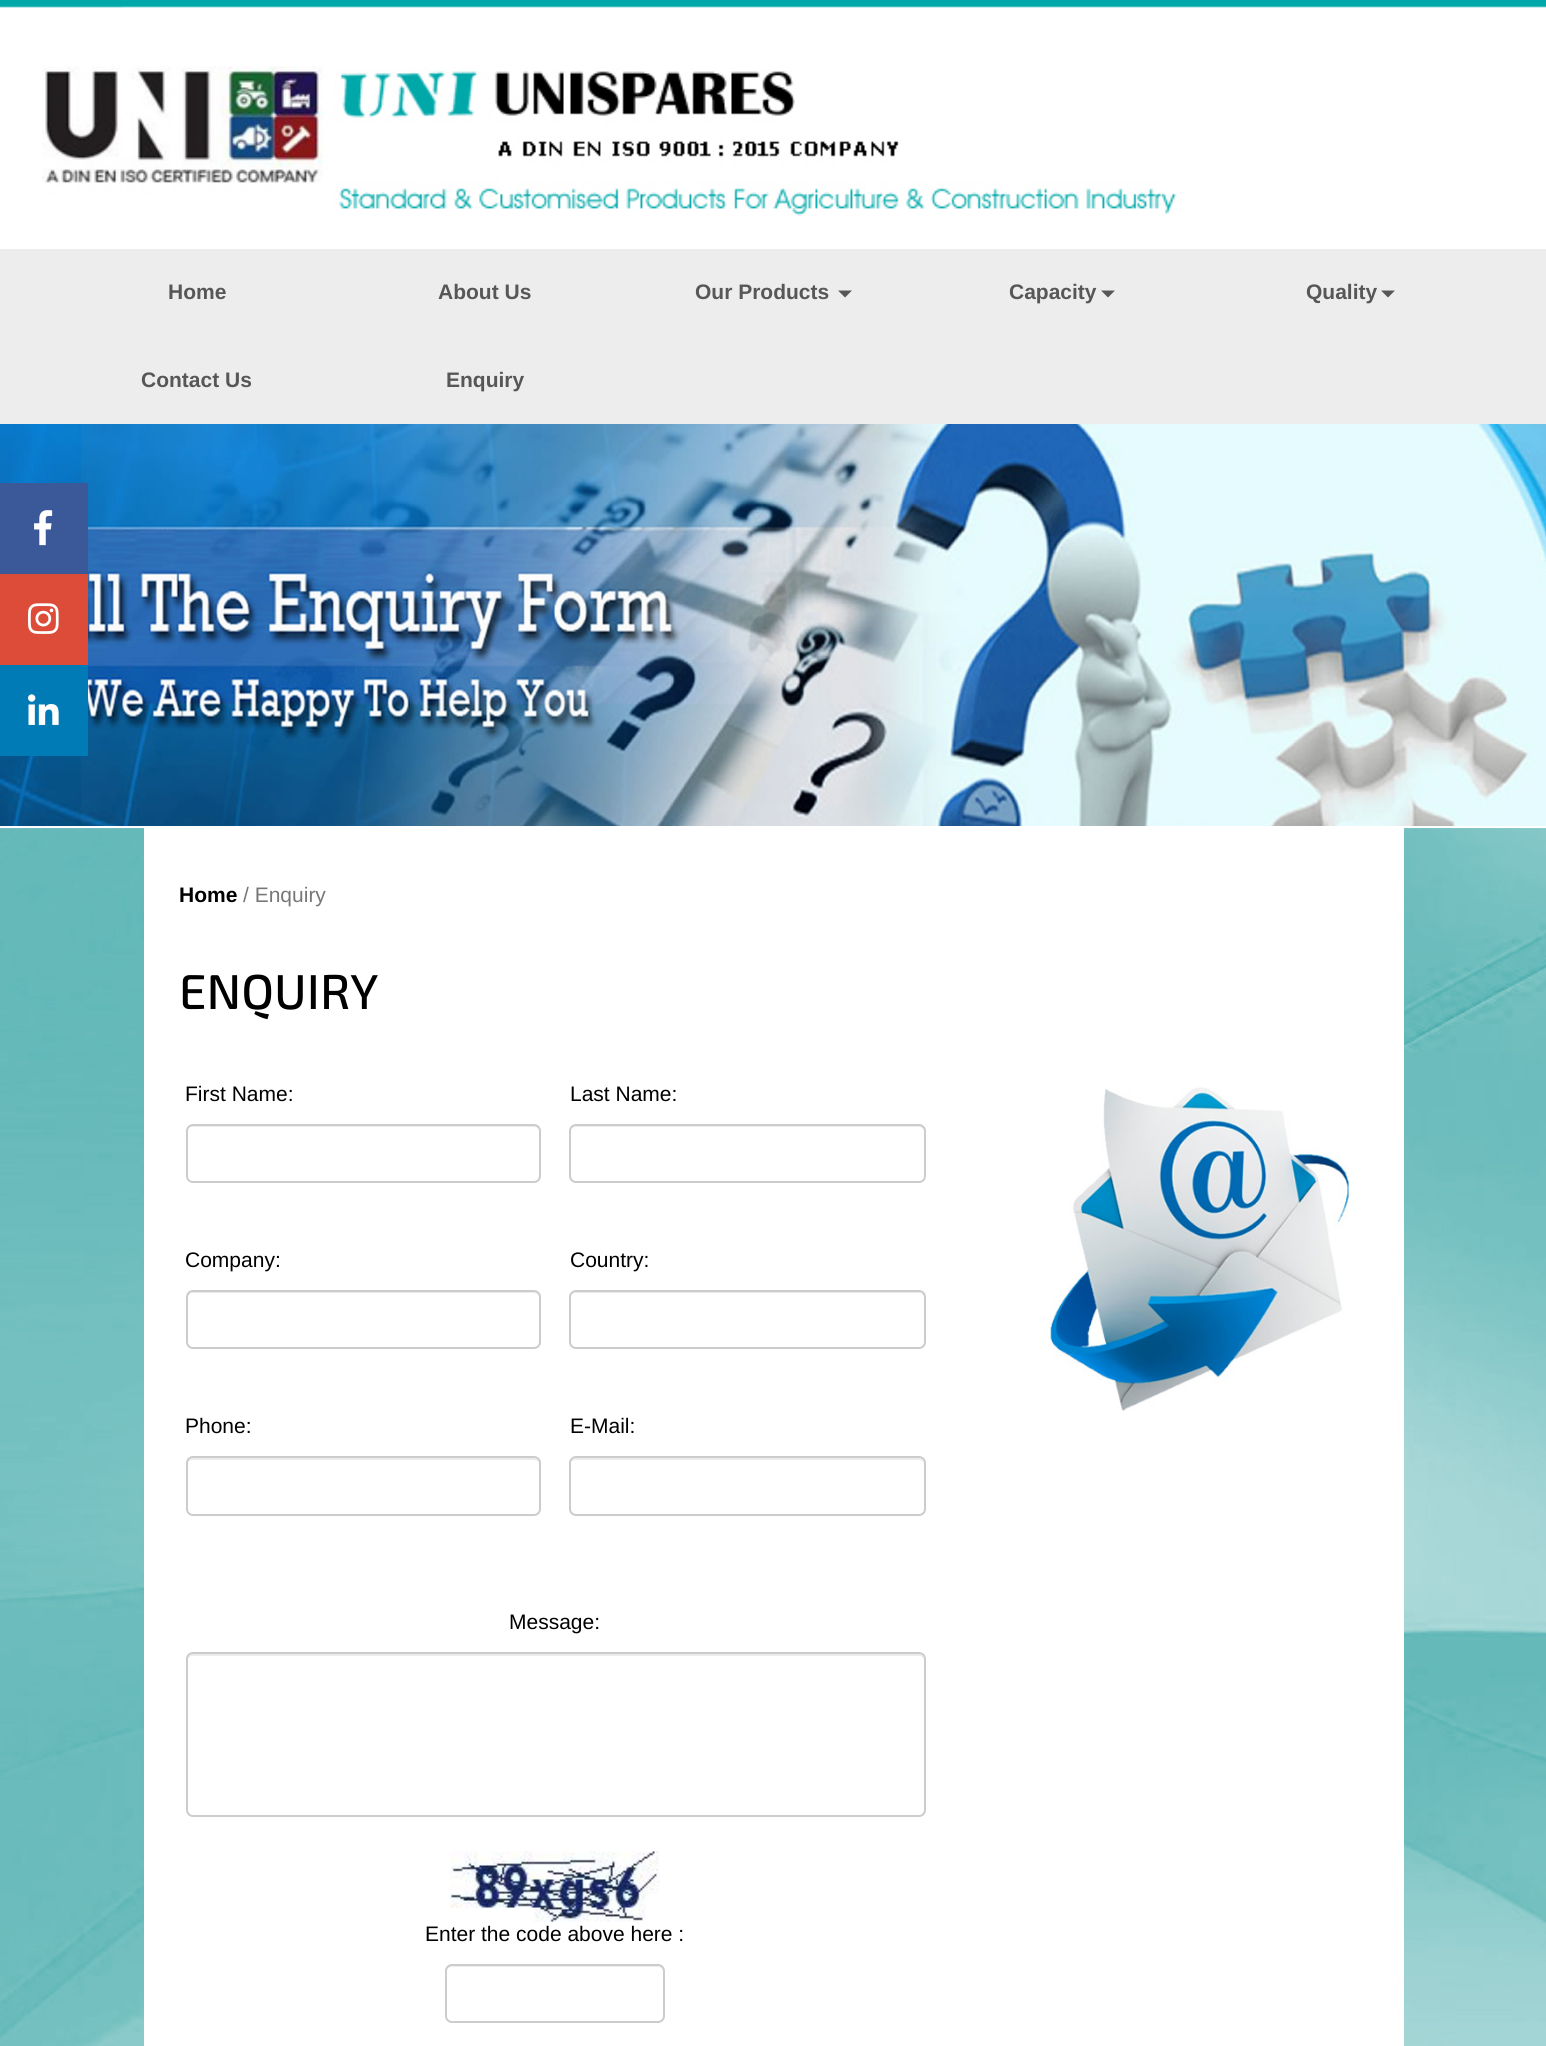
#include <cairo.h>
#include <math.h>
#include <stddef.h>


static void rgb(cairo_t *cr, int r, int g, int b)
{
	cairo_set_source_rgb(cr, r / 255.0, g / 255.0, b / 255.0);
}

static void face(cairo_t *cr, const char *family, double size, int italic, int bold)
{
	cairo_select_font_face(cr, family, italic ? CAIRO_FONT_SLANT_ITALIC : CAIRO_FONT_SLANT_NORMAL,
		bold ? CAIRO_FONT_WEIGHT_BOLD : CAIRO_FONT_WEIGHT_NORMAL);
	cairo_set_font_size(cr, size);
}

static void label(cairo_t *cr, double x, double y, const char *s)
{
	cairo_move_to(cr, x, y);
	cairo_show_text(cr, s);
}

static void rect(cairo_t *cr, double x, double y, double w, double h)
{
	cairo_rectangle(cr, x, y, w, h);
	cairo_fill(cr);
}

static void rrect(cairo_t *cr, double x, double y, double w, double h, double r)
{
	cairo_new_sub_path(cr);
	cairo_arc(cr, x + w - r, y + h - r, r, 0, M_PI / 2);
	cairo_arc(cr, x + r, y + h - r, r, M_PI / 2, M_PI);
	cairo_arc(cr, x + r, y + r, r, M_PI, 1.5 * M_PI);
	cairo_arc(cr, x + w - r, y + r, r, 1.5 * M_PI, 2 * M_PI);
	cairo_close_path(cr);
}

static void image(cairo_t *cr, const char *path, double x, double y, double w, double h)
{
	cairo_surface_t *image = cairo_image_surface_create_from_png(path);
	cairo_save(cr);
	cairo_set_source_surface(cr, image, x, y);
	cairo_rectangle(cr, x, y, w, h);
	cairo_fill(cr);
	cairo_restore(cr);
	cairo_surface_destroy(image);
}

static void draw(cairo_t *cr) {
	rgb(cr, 255, 255, 255);
	cairo_paint(cr);
	image(cr, "image0.png", 0, 0, 1546, 8);
	image(cr, "image1.png", 0, 6, 123, 2);
	image(cr, "image2.png", 42, 66, 1135, 150);
	rgb(cr, 237, 237, 237);
	rect(cr, 0, 249, 1546, 175);
	face(cr, "Liberation Sans", 21, 0, 1);
	rgb(cr, 87, 87, 87);
	label(cr, 168, 299, "Home");
	label(cr, 438, 299, "About Us");
	label(cr, 695, 299, "Our Products");
	cairo_new_path(cr);
	cairo_move_to(cr, 838, 290.5);
	cairo_line_to(cr, 852, 290.5);
	cairo_line_to(cr, 845, 297.5);
	cairo_close_path(cr);
	cairo_fill(cr);
	label(cr, 1009, 299, "Capacity");
	cairo_new_path(cr);
	cairo_move_to(cr, 1101, 290.5);
	cairo_line_to(cr, 1115, 290.5);
	cairo_line_to(cr, 1108, 297.5);
	cairo_close_path(cr);
	cairo_fill(cr);
	label(cr, 1306, 299, "Quality");
	cairo_new_path(cr);
	cairo_move_to(cr, 1381, 290.5);
	cairo_line_to(cr, 1395, 290.5);
	cairo_line_to(cr, 1388, 297.5);
	cairo_close_path(cr);
	cairo_fill(cr);
	label(cr, 141, 387, "Contact Us");
	label(cr, 446, 387, "Enquiry");
	image(cr, "image3.png", 0, 424, 1546, 402);
	rgb(cr, 59, 89, 152);
	rect(cr, 0, 483, 88, 91);
	image(cr, "image4.png", 34, 510, 19, 36);
	rgb(cr, 221, 75, 57);
	rect(cr, 0, 574, 88, 91);
	image(cr, "image5.png", 28, 603, 31, 31);
	rgb(cr, 0, 123, 181);
	rect(cr, 0, 665, 88, 91);
	image(cr, "image6.png", 28, 694, 31, 31);
	image(cr, "image7.png", 0, 828, 1546, 1218);
	rgb(cr, 255, 255, 255);
	rect(cr, 144, 828, 1260, 1218);
	rgb(cr, 0, 0, 0);
	label(cr, 179, 902, "Home");
	face(cr, "Liberation Sans", 21, 0, 0);
	rgb(cr, 119, 119, 119);
	label(cr, 243, 902, "/ Enquiry");
	face(cr, "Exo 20 Medium", 49, 0, 0);
	rgb(cr, 0, 0, 0);
	label(cr, 179, 1009, "ENQUIRY");
	face(cr, "Liberation Sans", 21, 0, 0);
	label(cr, 185, 1101, "First Name:");
	rgb(cr, 236, 236, 236);
	cairo_new_path(cr);
	cairo_move_to(cr, 192, 1127);
	cairo_line_to(cr, 534, 1127);
	cairo_curve_to(cr, 537, 1127, 539, 1129, 539, 1132);
	cairo_curve_to(cr, 539, 1129, 538, 1125, 534, 1125);
	cairo_line_to(cr, 192, 1125);
	cairo_curve_to(cr, 188, 1125, 187, 1129, 187, 1132);
	cairo_curve_to(cr, 187, 1129, 190, 1127, 192, 1127);
	cairo_close_path(cr);
	cairo_fill(cr);
	rrect(cr, 187, 1125, 353, 57, 6);
	rgb(cr, 204, 204, 204);
	cairo_stroke(cr);
	rgb(cr, 0, 0, 0);
	label(cr, 570, 1101, "Last Name:");
	rgb(cr, 236, 236, 236);
	cairo_new_path(cr);
	cairo_move_to(cr, 576, 1127);
	cairo_line_to(cr, 919, 1127);
	cairo_curve_to(cr, 922, 1127, 924, 1129, 924, 1132);
	cairo_curve_to(cr, 924, 1129, 923, 1125, 919, 1125);
	cairo_line_to(cr, 576, 1125);
	cairo_curve_to(cr, 574, 1125, 571, 1127, 571, 1129);
	cairo_curve_to(cr, 572, 1128, 574, 1127, 576, 1127);
	cairo_close_path(cr);
	cairo_fill(cr);
	rrect(cr, 570, 1125, 355, 57, 6);
	rgb(cr, 204, 204, 204);
	cairo_stroke(cr);
	rgb(cr, 0, 0, 0);
	label(cr, 185, 1267, "Company:");
	rgb(cr, 236, 236, 236);
	cairo_new_path(cr);
	cairo_move_to(cr, 192, 1293);
	cairo_line_to(cr, 534, 1293);
	cairo_curve_to(cr, 537, 1293, 539, 1296, 539, 1298);
	cairo_line_to(cr, 539, 1297);
	cairo_curve_to(cr, 539, 1294, 537, 1292, 534, 1292);
	cairo_line_to(cr, 192, 1292);
	cairo_curve_to(cr, 189, 1292, 187, 1294, 187, 1297);
	cairo_line_to(cr, 187, 1298);
	cairo_curve_to(cr, 187, 1296, 190, 1293, 192, 1293);
	cairo_close_path(cr);
	cairo_fill(cr);
	rrect(cr, 187, 1291, 353, 57, 6);
	rgb(cr, 204, 204, 204);
	cairo_stroke(cr);
	rgb(cr, 0, 0, 0);
	label(cr, 570, 1267, "Country:");
	rgb(cr, 236, 236, 236);
	cairo_new_path(cr);
	cairo_move_to(cr, 576, 1293);
	cairo_line_to(cr, 919, 1293);
	cairo_curve_to(cr, 922, 1293, 924, 1296, 924, 1298);
	cairo_line_to(cr, 924, 1297);
	cairo_curve_to(cr, 924, 1294, 922, 1292, 919, 1292);
	cairo_line_to(cr, 576, 1292);
	cairo_curve_to(cr, 574, 1292, 572, 1293, 571, 1295);
	cairo_curve_to(cr, 572, 1294, 574, 1293, 576, 1293);
	cairo_close_path(cr);
	cairo_fill(cr);
	rrect(cr, 570, 1291, 355, 57, 6);
	rgb(cr, 204, 204, 204);
	cairo_stroke(cr);
	rgb(cr, 0, 0, 0);
	label(cr, 185, 1433, "Phone:");
	rgb(cr, 236, 236, 236);
	cairo_new_path(cr);
	cairo_move_to(cr, 192, 1460);
	cairo_line_to(cr, 534, 1460);
	cairo_curve_to(cr, 537, 1460, 539, 1462, 539, 1465);
	cairo_curve_to(cr, 539, 1462, 538, 1458, 534, 1458);
	cairo_line_to(cr, 192, 1458);
	cairo_curve_to(cr, 188, 1458, 187, 1462, 187, 1465);
	cairo_curve_to(cr, 187, 1462, 190, 1460, 192, 1460);
	cairo_close_path(cr);
	cairo_fill(cr);
	rrect(cr, 187, 1457, 353, 58, 6);
	rgb(cr, 204, 204, 204);
	cairo_stroke(cr);
	rgb(cr, 0, 0, 0);
	label(cr, 570, 1433, "E-Mail:");
	rgb(cr, 236, 236, 236);
	cairo_new_path(cr);
	cairo_move_to(cr, 576, 1460);
	cairo_line_to(cr, 919, 1460);
	cairo_curve_to(cr, 922, 1460, 924, 1462, 924, 1465);
	cairo_curve_to(cr, 924, 1462, 923, 1458, 919, 1458);
	cairo_line_to(cr, 576, 1458);
	cairo_curve_to(cr, 574, 1458, 571, 1460, 571, 1462);
	cairo_curve_to(cr, 572, 1461, 574, 1460, 576, 1460);
	cairo_close_path(cr);
	cairo_fill(cr);
	rrect(cr, 570, 1457, 355, 58, 6);
	rgb(cr, 204, 204, 204);
	cairo_stroke(cr);
	rgb(cr, 0, 0, 0);
	label(cr, 509, 1629, "Message:");
	rgb(cr, 236, 236, 236);
	cairo_new_path(cr);
	cairo_move_to(cr, 192, 1656);
	cairo_line_to(cr, 919, 1656);
	cairo_curve_to(cr, 922, 1656, 924, 1658, 924, 1661);
	cairo_line_to(cr, 924, 1659);
	cairo_curve_to(cr, 924, 1656, 922, 1654, 919, 1654);
	cairo_line_to(cr, 192, 1654);
	cairo_curve_to(cr, 189, 1654, 187, 1656, 187, 1659);
	cairo_line_to(cr, 187, 1661);
	cairo_curve_to(cr, 187, 1658, 190, 1656, 192, 1656);
	cairo_close_path(cr);
	cairo_fill(cr);
	rrect(cr, 187, 1653, 738, 163, 6);
	rgb(cr, 204, 204, 204);
	cairo_stroke(cr);
	image(cr, "image8.png", 449, 1851, 211, 71);
	rgb(cr, 0, 0, 0);
	label(cr, 425, 1941, "Enter the code above here :");
	rgb(cr, 236, 236, 236);
	cairo_new_path(cr);
	cairo_move_to(cr, 452, 1967);
	cairo_line_to(cr, 658, 1967);
	cairo_curve_to(cr, 661, 1967, 663, 1969, 663, 1972);
	cairo_line_to(cr, 663, 1970);
	cairo_curve_to(cr, 663, 1967, 661, 1965, 658, 1965);
	cairo_line_to(cr, 451, 1965);
	cairo_curve_to(cr, 448, 1965, 446, 1967, 446, 1970);
	cairo_line_to(cr, 446, 1972);
	cairo_curve_to(cr, 446, 1969, 449, 1967, 452, 1967);
	cairo_close_path(cr);
	cairo_fill(cr);
	rrect(cr, 446, 1965, 218, 57, 6);
	rgb(cr, 204, 204, 204);
	cairo_stroke(cr);
	image(cr, "image9.png", 1050, 1087, 299, 324);
}

int main(void) {
	cairo_surface_t *surface = cairo_image_surface_create(CAIRO_FORMAT_RGB24, 1546, 2046);
	cairo_t *cr = cairo_create(surface);
	cairo_font_options_t *options = cairo_font_options_create();
	cairo_font_options_set_hint_metrics(options, CAIRO_HINT_METRICS_OFF);
	cairo_font_options_set_hint_style(options, CAIRO_HINT_STYLE_NONE);
	cairo_set_font_options(cr, options);
	cairo_set_miter_limit(cr, 4);
	draw(cr);
	cairo_surface_write_to_png(surface, "render.png");
	cairo_font_options_destroy(options);
	cairo_destroy(cr);
	cairo_surface_destroy(surface);
	return 0;
}
